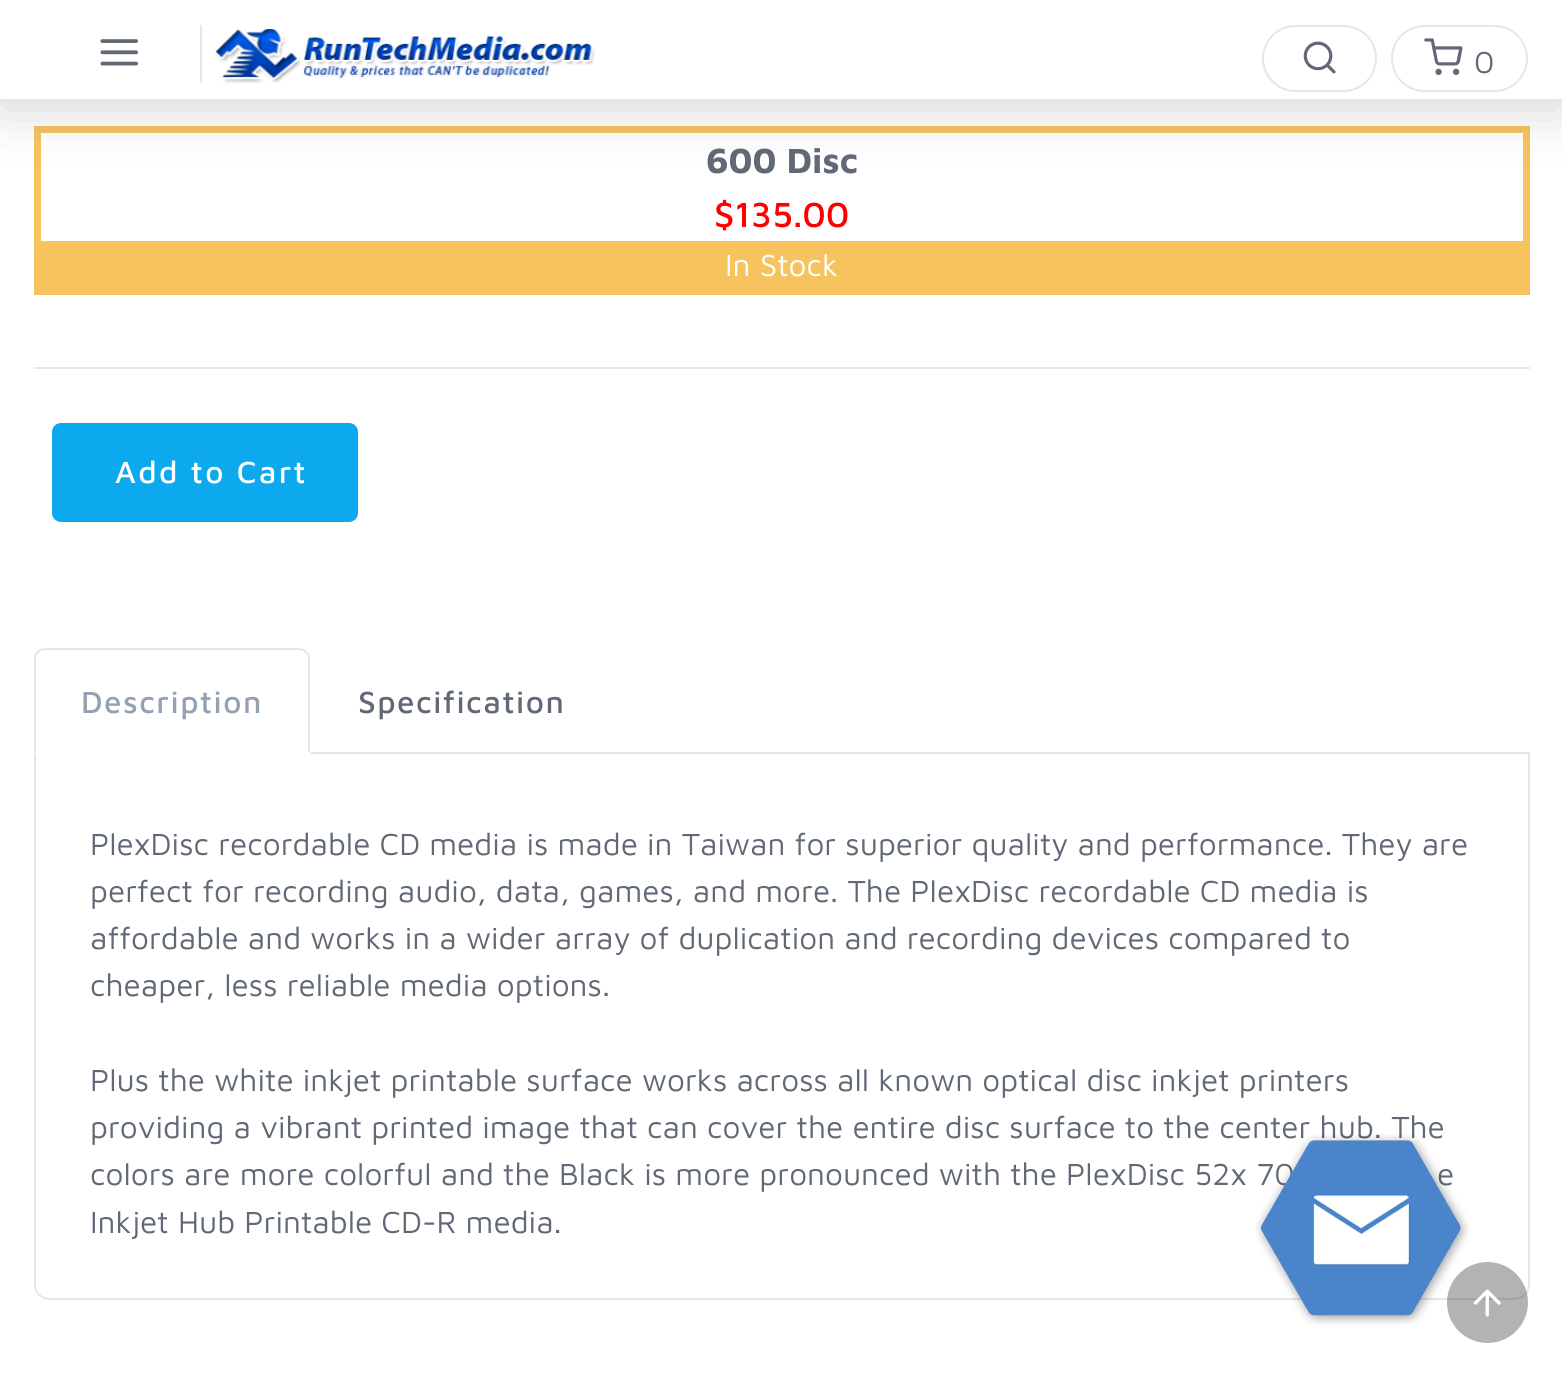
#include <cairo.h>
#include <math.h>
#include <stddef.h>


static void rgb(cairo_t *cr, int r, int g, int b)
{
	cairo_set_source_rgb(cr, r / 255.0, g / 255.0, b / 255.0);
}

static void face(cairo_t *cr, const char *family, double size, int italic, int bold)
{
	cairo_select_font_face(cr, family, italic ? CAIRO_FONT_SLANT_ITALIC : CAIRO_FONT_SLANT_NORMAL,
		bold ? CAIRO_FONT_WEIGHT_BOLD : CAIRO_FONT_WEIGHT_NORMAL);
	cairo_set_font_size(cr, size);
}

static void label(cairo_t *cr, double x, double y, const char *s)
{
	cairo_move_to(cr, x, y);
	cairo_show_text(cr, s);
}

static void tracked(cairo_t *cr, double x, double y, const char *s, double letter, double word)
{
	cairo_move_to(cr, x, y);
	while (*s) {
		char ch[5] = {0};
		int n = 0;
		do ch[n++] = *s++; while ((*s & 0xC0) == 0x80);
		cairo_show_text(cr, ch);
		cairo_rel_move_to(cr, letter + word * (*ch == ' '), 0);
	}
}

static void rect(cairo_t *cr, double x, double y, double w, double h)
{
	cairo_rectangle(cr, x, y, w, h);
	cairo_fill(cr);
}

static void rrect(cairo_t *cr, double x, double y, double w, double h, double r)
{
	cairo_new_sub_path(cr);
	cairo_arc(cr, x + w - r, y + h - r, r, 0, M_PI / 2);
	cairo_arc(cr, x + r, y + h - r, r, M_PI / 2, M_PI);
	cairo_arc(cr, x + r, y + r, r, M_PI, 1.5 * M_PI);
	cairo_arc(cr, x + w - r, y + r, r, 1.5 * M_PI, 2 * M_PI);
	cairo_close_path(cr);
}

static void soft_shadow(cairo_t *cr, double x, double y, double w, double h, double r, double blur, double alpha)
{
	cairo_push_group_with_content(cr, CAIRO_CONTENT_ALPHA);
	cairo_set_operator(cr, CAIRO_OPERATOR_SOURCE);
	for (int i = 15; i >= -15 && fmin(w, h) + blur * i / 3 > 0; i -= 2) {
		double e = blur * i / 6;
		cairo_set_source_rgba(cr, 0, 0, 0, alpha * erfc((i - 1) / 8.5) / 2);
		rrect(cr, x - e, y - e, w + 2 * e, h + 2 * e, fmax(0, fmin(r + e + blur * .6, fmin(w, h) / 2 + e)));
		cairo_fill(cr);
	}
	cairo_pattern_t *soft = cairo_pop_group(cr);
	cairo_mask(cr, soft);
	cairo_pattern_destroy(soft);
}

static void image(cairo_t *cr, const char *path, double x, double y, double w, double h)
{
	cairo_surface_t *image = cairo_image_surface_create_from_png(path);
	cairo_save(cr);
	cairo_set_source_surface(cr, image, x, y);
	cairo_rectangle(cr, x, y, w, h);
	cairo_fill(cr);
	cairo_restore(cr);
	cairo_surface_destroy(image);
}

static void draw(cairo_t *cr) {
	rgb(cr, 255, 255, 255);
	cairo_paint(cr);
	cairo_rectangle(cr, 37.5, 129.5, 1489, 162);
	rgb(cr, 246, 195, 95);
	cairo_set_line_width(cr, 7);
	cairo_stroke(cr);
	rgb(cr, 47, 56, 68);
	soft_shadow(cr, 0, 7, 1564, 101, 0, 28, 0.22);
	rgb(cr, 255, 255, 255);
	rect(cr, 0, 0, 1562, 99);
	rgb(cr, 225, 231, 236);
	rect(cr, 0, 99, 1562, 2);
	rect(cr, 200, 25, 2, 58);
	image(cr, "image0.png", 100, 39, 38, 27);
	image(cr, "image1.png", 215, 29, 380, 54);
	rrect(cr, 1263, 26, 113, 65, 32.5);
	cairo_set_line_width(cr, 2);
	cairo_stroke(cr);
	image(cr, "image2.png", 1303, 41, 33, 33);
	rrect(cr, 1392, 26, 135, 65, 32.5);
	cairo_stroke(cr);
	image(cr, "image3.png", 1424, 38, 39, 37);
	face(cr, "Maven Pro", 31.5, 0, 0);
	rgb(cr, 96, 105, 117);
	label(cr, 1474, 73, "0");
	face(cr, "Maven Pro", 36, 0, 1);
	label(cr, 706, 173, "600 Disc");
	face(cr, "Maven Pro Medium", 36, 0, 0);
	rgb(cr, 255, 0, 0);
	label(cr, 714, 227, "$135.00");
	rgb(cr, 246, 195, 95);
	rect(cr, 41, 241, 1482, 47);
	face(cr, "Maven Pro", 31.5, 0, 0);
	rgb(cr, 255, 255, 255);
	label(cr, 725, 276, "In Stock");
	rgb(cr, 225, 231, 236);
	rect(cr, 34, 367, 1496, 2);
	rgb(cr, 13, 169, 239);
	rrect(cr, 52, 423, 306, 99, 9);
	cairo_fill(cr);
	face(cr, "Maven Pro Medium", 31.5, 0, 0);
	rgb(cr, 255, 255, 255);
	tracked(cr, 115, 483, "Add to Cart", 2.25, 0);
	rgb(cr, 225, 231, 236);
	rect(cr, 311, 752, 1219, 2);
	cairo_new_path(cr);
	cairo_move_to(cr, 45, 648);
	cairo_curve_to(cr, 42, 648, 39, 649, 37, 651);
	cairo_line_to(cr, 39, 653);
	cairo_curve_to(cr, 40, 651, 42, 650, 45, 650);
	cairo_line_to(cr, 299, 650);
	cairo_curve_to(cr, 302, 650, 304, 651, 306, 653);
	cairo_line_to(cr, 307, 652);
	cairo_curve_to(cr, 305, 649, 302, 648, 299, 648);
	cairo_close_path(cr);
	cairo_fill(cr);
	cairo_new_path(cr);
	cairo_move_to(cr, 307, 652);
	cairo_curve_to(cr, 309, 653, 310, 656, 310, 659);
	cairo_line_to(cr, 310, 753);
	cairo_line_to(cr, 308, 751);
	cairo_line_to(cr, 308, 659);
	cairo_curve_to(cr, 308, 657, 307, 654, 306, 653);
	cairo_close_path(cr);
	cairo_fill(cr);
	rgb(cr, 255, 255, 255);
	cairo_new_path(cr);
	cairo_move_to(cr, 34, 754);
	cairo_line_to(cr, 36, 752);
	cairo_line_to(cr, 308, 752);
	cairo_line_to(cr, 308, 751);
	cairo_line_to(cr, 310, 753);
	cairo_line_to(cr, 310, 754);
	cairo_close_path(cr);
	cairo_fill(cr);
	rgb(cr, 225, 231, 236);
	cairo_new_path(cr);
	cairo_move_to(cr, 37, 651);
	cairo_curve_to(cr, 35, 653, 34, 656, 34, 659);
	cairo_line_to(cr, 34, 754);
	cairo_line_to(cr, 36, 752);
	cairo_line_to(cr, 36, 659);
	cairo_curve_to(cr, 36, 657, 37, 654, 39, 653);
	cairo_close_path(cr);
	cairo_fill(cr);
	rgb(cr, 148, 161, 179);
	tracked(cr, 81, 713, "Description", 1.5, 0);
	rgb(cr, 96, 105, 117);
	tracked(cr, 358, 713, "Specification", 1.5, 0);
	rgb(cr, 225, 231, 236);
	cairo_set_fill_rule(cr, CAIRO_FILL_RULE_EVEN_ODD);
	cairo_new_path(cr);
	cairo_move_to(cr, 34, 754);
	cairo_line_to(cr, 1530, 754);
	cairo_line_to(cr, 1530, 1285);
	cairo_curve_to(cr, 1530, 1293, 1523, 1300, 1514, 1300);
	cairo_line_to(cr, 50, 1300);
	cairo_curve_to(cr, 41, 1300, 34, 1293, 34, 1285);
	cairo_close_path(cr);
	cairo_move_to(cr, 36, 754);
	cairo_line_to(cr, 1528, 754);
	cairo_line_to(cr, 1528, 1285);
	cairo_curve_to(cr, 1528, 1292, 1522, 1298, 1514, 1298);
	cairo_line_to(cr, 50, 1298);
	cairo_curve_to(cr, 42, 1298, 36, 1292, 36, 1285);
	cairo_close_path(cr);
	cairo_fill(cr);
	face(cr, "Maven Pro", 31.5, 0, 0);
	rgb(cr, 96, 105, 117);
	label(cr, 90, 855, "PlexDisc recordable CD media is made in Taiwan for superior quality and performance. They are");
	label(cr, 90, 902, "perfect for recording audio, data, games, and more. The PlexDisc recordable CD media is");
	label(cr, 90, 949, "affordable and works in a wider array of duplication and recording devices compared to");
	label(cr, 90, 996, "cheaper, less reliable media options.");
	label(cr, 90, 1091, "Plus the white inkjet printable surface works across all known optical disc inkjet printers");
	label(cr, 90, 1138, "providing a vibrant printed image that can cover the entire disc surface to the center hub. The");
	label(cr, 90, 1185, "colors are more colorful and the Black is more pronounced with the PlexDisc 52x 70");
	label(cr, 1437, 1185, "e");
	label(cr, 90, 1233, "Inkjet Hub Printable CD-R media.");
	cairo_set_source_rgba(cr, 0, 0, 0, 0.3);
	cairo_new_path(cr);
	cairo_arc(cr, 1487.5, 1302.5, 40.5, 0, 2 * M_PI);
	cairo_fill(cr);
	image(cr, "image4.png", 1473, 1289, 28, 28);
	image(cr, "image5.png", 1256, 1134, 214, 191);
}

int main(void) {
	cairo_surface_t *surface = cairo_image_surface_create(CAIRO_FORMAT_RGB24, 1562, 1374);
	cairo_t *cr = cairo_create(surface);
	cairo_font_options_t *options = cairo_font_options_create();
	cairo_font_options_set_hint_metrics(options, CAIRO_HINT_METRICS_OFF);
	cairo_font_options_set_hint_style(options, CAIRO_HINT_STYLE_NONE);
	cairo_set_font_options(cr, options);
	cairo_set_miter_limit(cr, 4);
	draw(cr);
	cairo_surface_write_to_png(surface, "render.png");
	cairo_font_options_destroy(options);
	cairo_destroy(cr);
	cairo_surface_destroy(surface);
	return 0;
}
